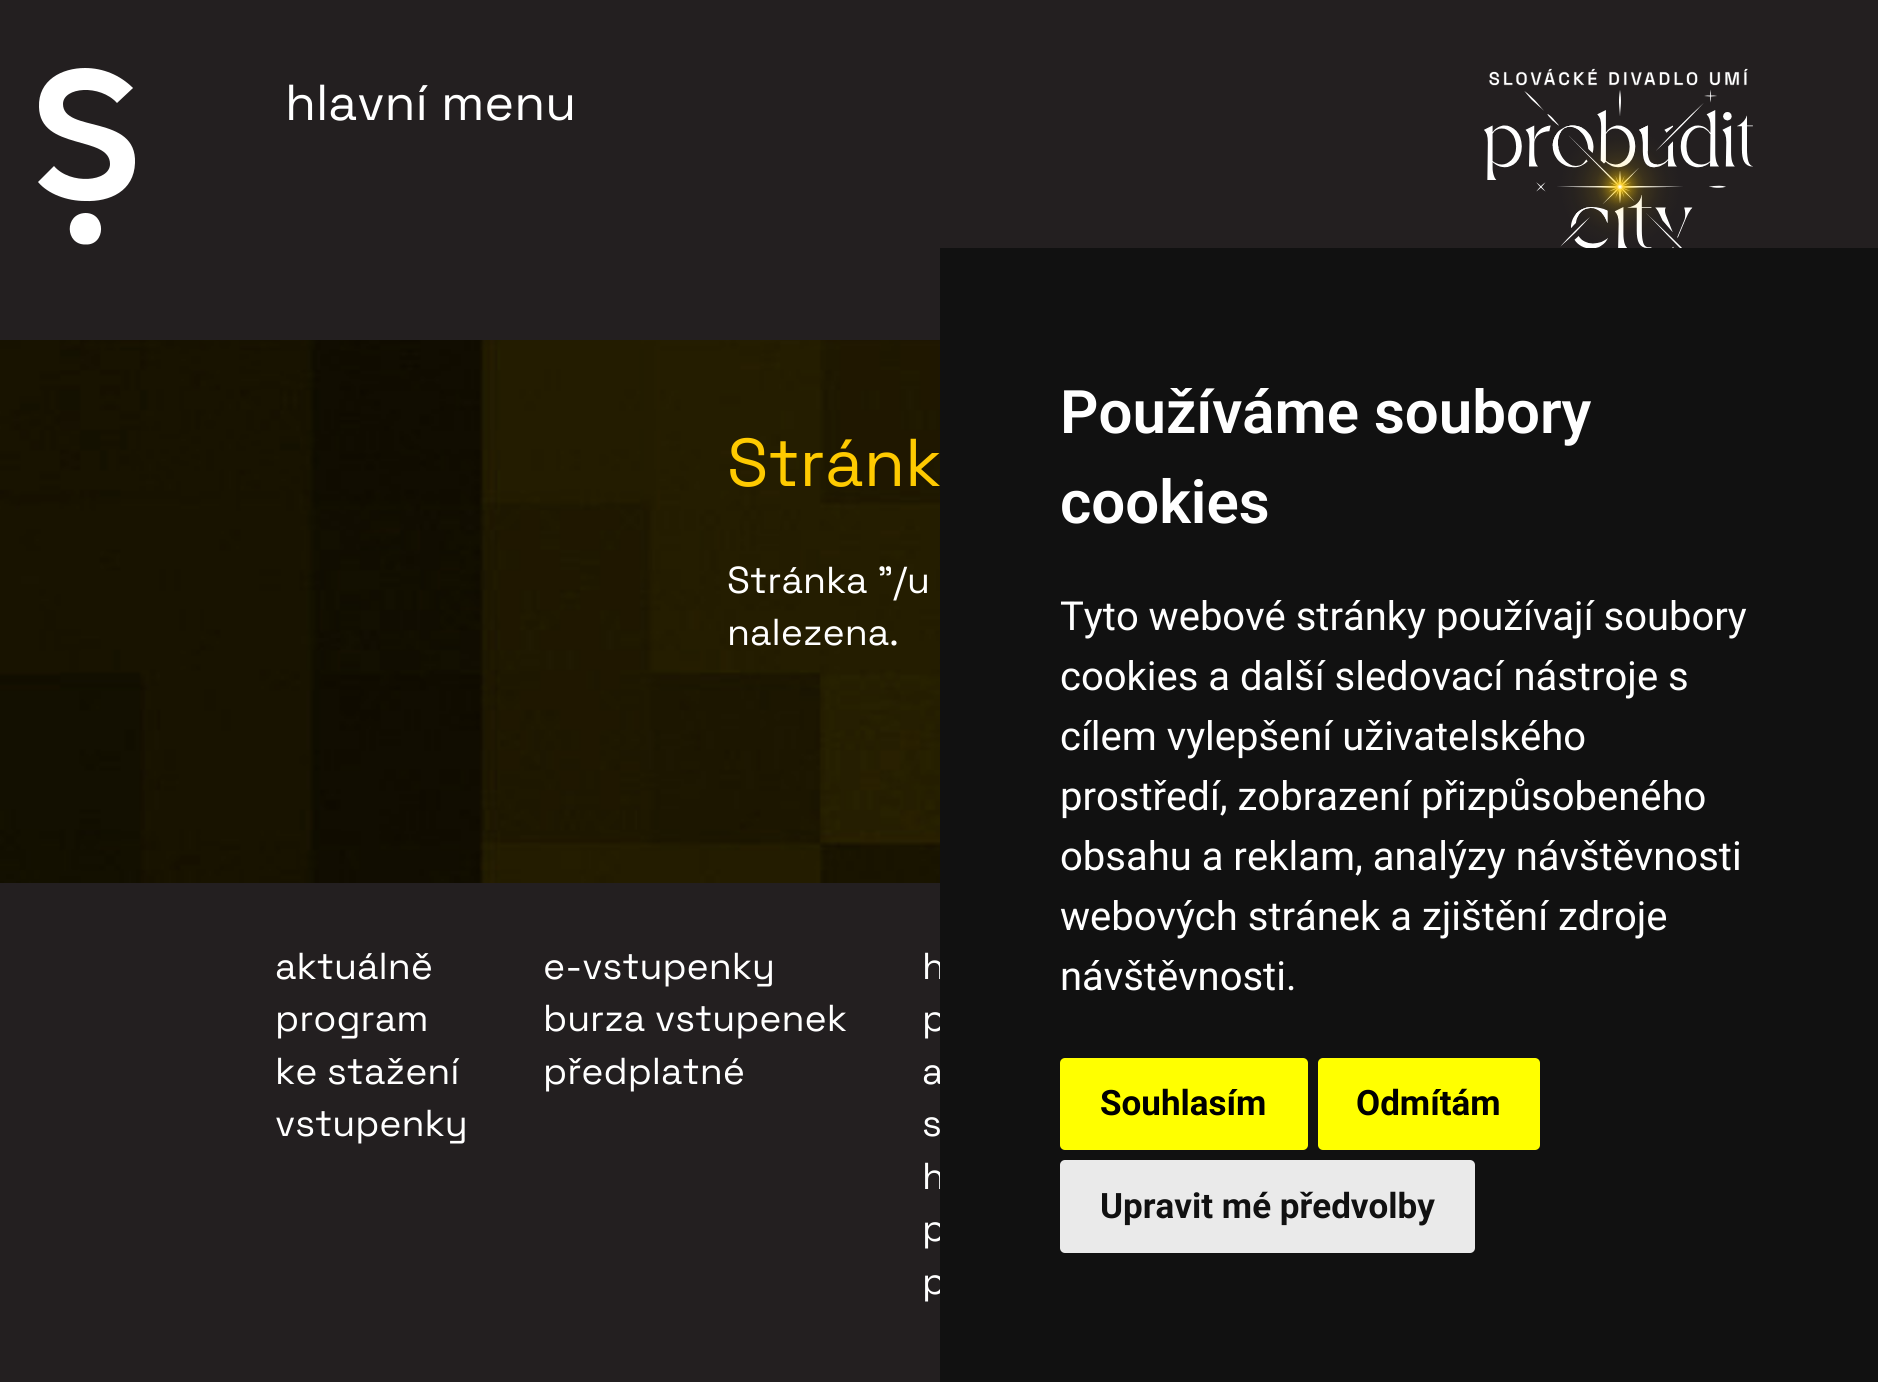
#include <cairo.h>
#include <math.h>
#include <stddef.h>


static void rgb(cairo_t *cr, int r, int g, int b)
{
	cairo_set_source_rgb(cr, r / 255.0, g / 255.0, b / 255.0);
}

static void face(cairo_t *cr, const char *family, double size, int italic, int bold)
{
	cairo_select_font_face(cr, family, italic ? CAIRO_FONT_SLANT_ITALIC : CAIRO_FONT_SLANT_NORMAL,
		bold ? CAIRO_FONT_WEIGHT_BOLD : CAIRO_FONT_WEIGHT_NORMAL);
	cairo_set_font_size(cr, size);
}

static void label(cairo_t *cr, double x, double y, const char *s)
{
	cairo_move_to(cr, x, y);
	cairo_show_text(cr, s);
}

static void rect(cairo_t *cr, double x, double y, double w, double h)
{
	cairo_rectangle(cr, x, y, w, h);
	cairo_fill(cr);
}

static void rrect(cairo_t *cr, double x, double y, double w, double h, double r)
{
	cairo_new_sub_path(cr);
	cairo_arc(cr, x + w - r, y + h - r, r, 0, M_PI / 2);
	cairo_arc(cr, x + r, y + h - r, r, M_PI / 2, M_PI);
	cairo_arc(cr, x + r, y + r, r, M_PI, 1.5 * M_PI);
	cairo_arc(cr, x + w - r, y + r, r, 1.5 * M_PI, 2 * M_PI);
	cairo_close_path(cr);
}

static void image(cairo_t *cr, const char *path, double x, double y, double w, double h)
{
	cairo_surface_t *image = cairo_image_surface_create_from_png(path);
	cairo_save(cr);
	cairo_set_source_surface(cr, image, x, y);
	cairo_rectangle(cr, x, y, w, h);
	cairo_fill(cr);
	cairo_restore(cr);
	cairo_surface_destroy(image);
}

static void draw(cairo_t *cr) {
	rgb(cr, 255, 255, 255);
	cairo_paint(cr);
	image(cr, "image0.png", 0, 340, 940, 543);
	rgb(cr, 35, 31, 32);
	rect(cr, 0, 0, 1878, 340);
	rgb(cr, 255, 255, 255);
	cairo_new_path(cr);
	cairo_move_to(cr, 38, 182);
	cairo_curve_to(cr, 48, 194, 67, 201, 85, 201);
	cairo_curve_to(cr, 110, 202, 134, 191, 135, 163);
	cairo_curve_to(cr, 137, 114, 63, 133, 63, 104);
	cairo_curve_to(cr, 63, 87, 100, 84, 117, 103);
	cairo_line_to(cr, 133, 88);
	cairo_curve_to(cr, 120, 75, 103, 68, 85, 68);
	cairo_curve_to(cr, 62, 68, 38, 80, 39, 107);
	cairo_curve_to(cr, 40, 151, 110, 135, 110, 164);
	cairo_curve_to(cr, 110, 182, 70, 185, 54, 166);
	cairo_close_path(cr);
	cairo_fill(cr);
	cairo_new_path(cr);
	cairo_move_to(cr, 85.5, 244.5);
	cairo_curve_to(cr, 65, 245, 64, 213.5, 85.5, 213);
	cairo_curve_to(cr, 106.5, 213, 106, 245.5, 85.5, 244.5);
	cairo_close_path(cr);
	cairo_fill(cr);
	face(cr, "Space Grotesk", 50.5, 0, 0);
	label(cr, 285, 120, "hlavní menu");
	image(cr, "image1.png", 1484, 68, 269, 180);
	face(cr, "Space Grotesk", 67.5, 0, 0);
	rgb(cr, 254, 202, 0);
	label(cr, 727, 486, "Stránk");
	face(cr, "Space Grotesk", 37.5, 0, 0);
	rgb(cr, 255, 255, 255);
	label(cr, 727, 593, "Stránka \"/u");
	label(cr, 727, 645, "nalezena.");
	rgb(cr, 35, 31, 32);
	rect(cr, 0, 883, 940, 499);
	rgb(cr, 255, 255, 255);
	label(cr, 922, 979, "h");
	label(cr, 922, 1031, "p");
	label(cr, 922, 1084, "a");
	label(cr, 922, 1189, "h");
	label(cr, 922, 1241, "p");
	label(cr, 922, 1294, "p");
	rgb(cr, 17, 17, 17);
	rect(cr, 940, 248, 938, 1134);
	face(cr, "Roboto SemiBold", 60, 0, 0);
	rgb(cr, 255, 255, 255);
	label(cr, 1060, 433, "Používáme soubory");
	label(cr, 1060, 523, "cookies");
	face(cr, "Roboto", 40, 0, 0);
	label(cr, 1060, 630, "Tyto webové stránky používají soubory");
	label(cr, 1060, 690, "cookies a další sledovací nástroje s");
	label(cr, 1060, 750, "cílem vylepšení uživatelského");
	label(cr, 1060, 810, "prostředí, zobrazení přizpůsobeného");
	label(cr, 1060, 870, "obsahu a reklam, analýzy návštěvnosti");
	label(cr, 1060, 930, "webových stránek a zjištění zdroje");
	label(cr, 1060, 990, "návštěvnosti.");
	rgb(cr, 255, 255, 0);
	rrect(cr, 1060, 1058, 248, 92, 5);
	cairo_fill(cr);
	face(cr, "Roboto", 35, 0, 1);
	rgb(cr, 0, 0, 0);
	label(cr, 1100, 1115, "Souhlasím");
	rgb(cr, 255, 255, 0);
	rrect(cr, 1318, 1058, 222, 92, 5);
	cairo_fill(cr);
	rgb(cr, 0, 0, 0);
	label(cr, 1356, 1115, "Odmítám");
	rgb(cr, 234, 234, 234);
	rrect(cr, 1060, 1160, 415, 93, 5);
	cairo_fill(cr);
	rgb(cr, 17, 17, 17);
	label(cr, 1100, 1218, "Upravit mé předvolby");
	face(cr, "Space Grotesk", 37.5, 0, 0);
	rgb(cr, 255, 255, 255);
	label(cr, 275, 979, "aktuálně");
	label(cr, 275, 1031, "program");
	label(cr, 275, 1084, "ke stažení");
	label(cr, 275, 1136, "vstupenky");
	label(cr, 543, 979, "e-vstupenky");
	label(cr, 543, 1031, "burza vstupenek");
	label(cr, 543, 1084, "předplatné");
	label(cr, 922, 1136, "s");
}

int main(void) {
	cairo_surface_t *surface = cairo_image_surface_create(CAIRO_FORMAT_RGB24, 1878, 1382);
	cairo_t *cr = cairo_create(surface);
	cairo_font_options_t *options = cairo_font_options_create();
	cairo_font_options_set_hint_metrics(options, CAIRO_HINT_METRICS_OFF);
	cairo_font_options_set_hint_style(options, CAIRO_HINT_STYLE_NONE);
	cairo_set_font_options(cr, options);
	cairo_set_miter_limit(cr, 4);
	draw(cr);
	cairo_surface_write_to_png(surface, "render.png");
	cairo_font_options_destroy(options);
	cairo_destroy(cr);
	cairo_surface_destroy(surface);
	return 0;
}
